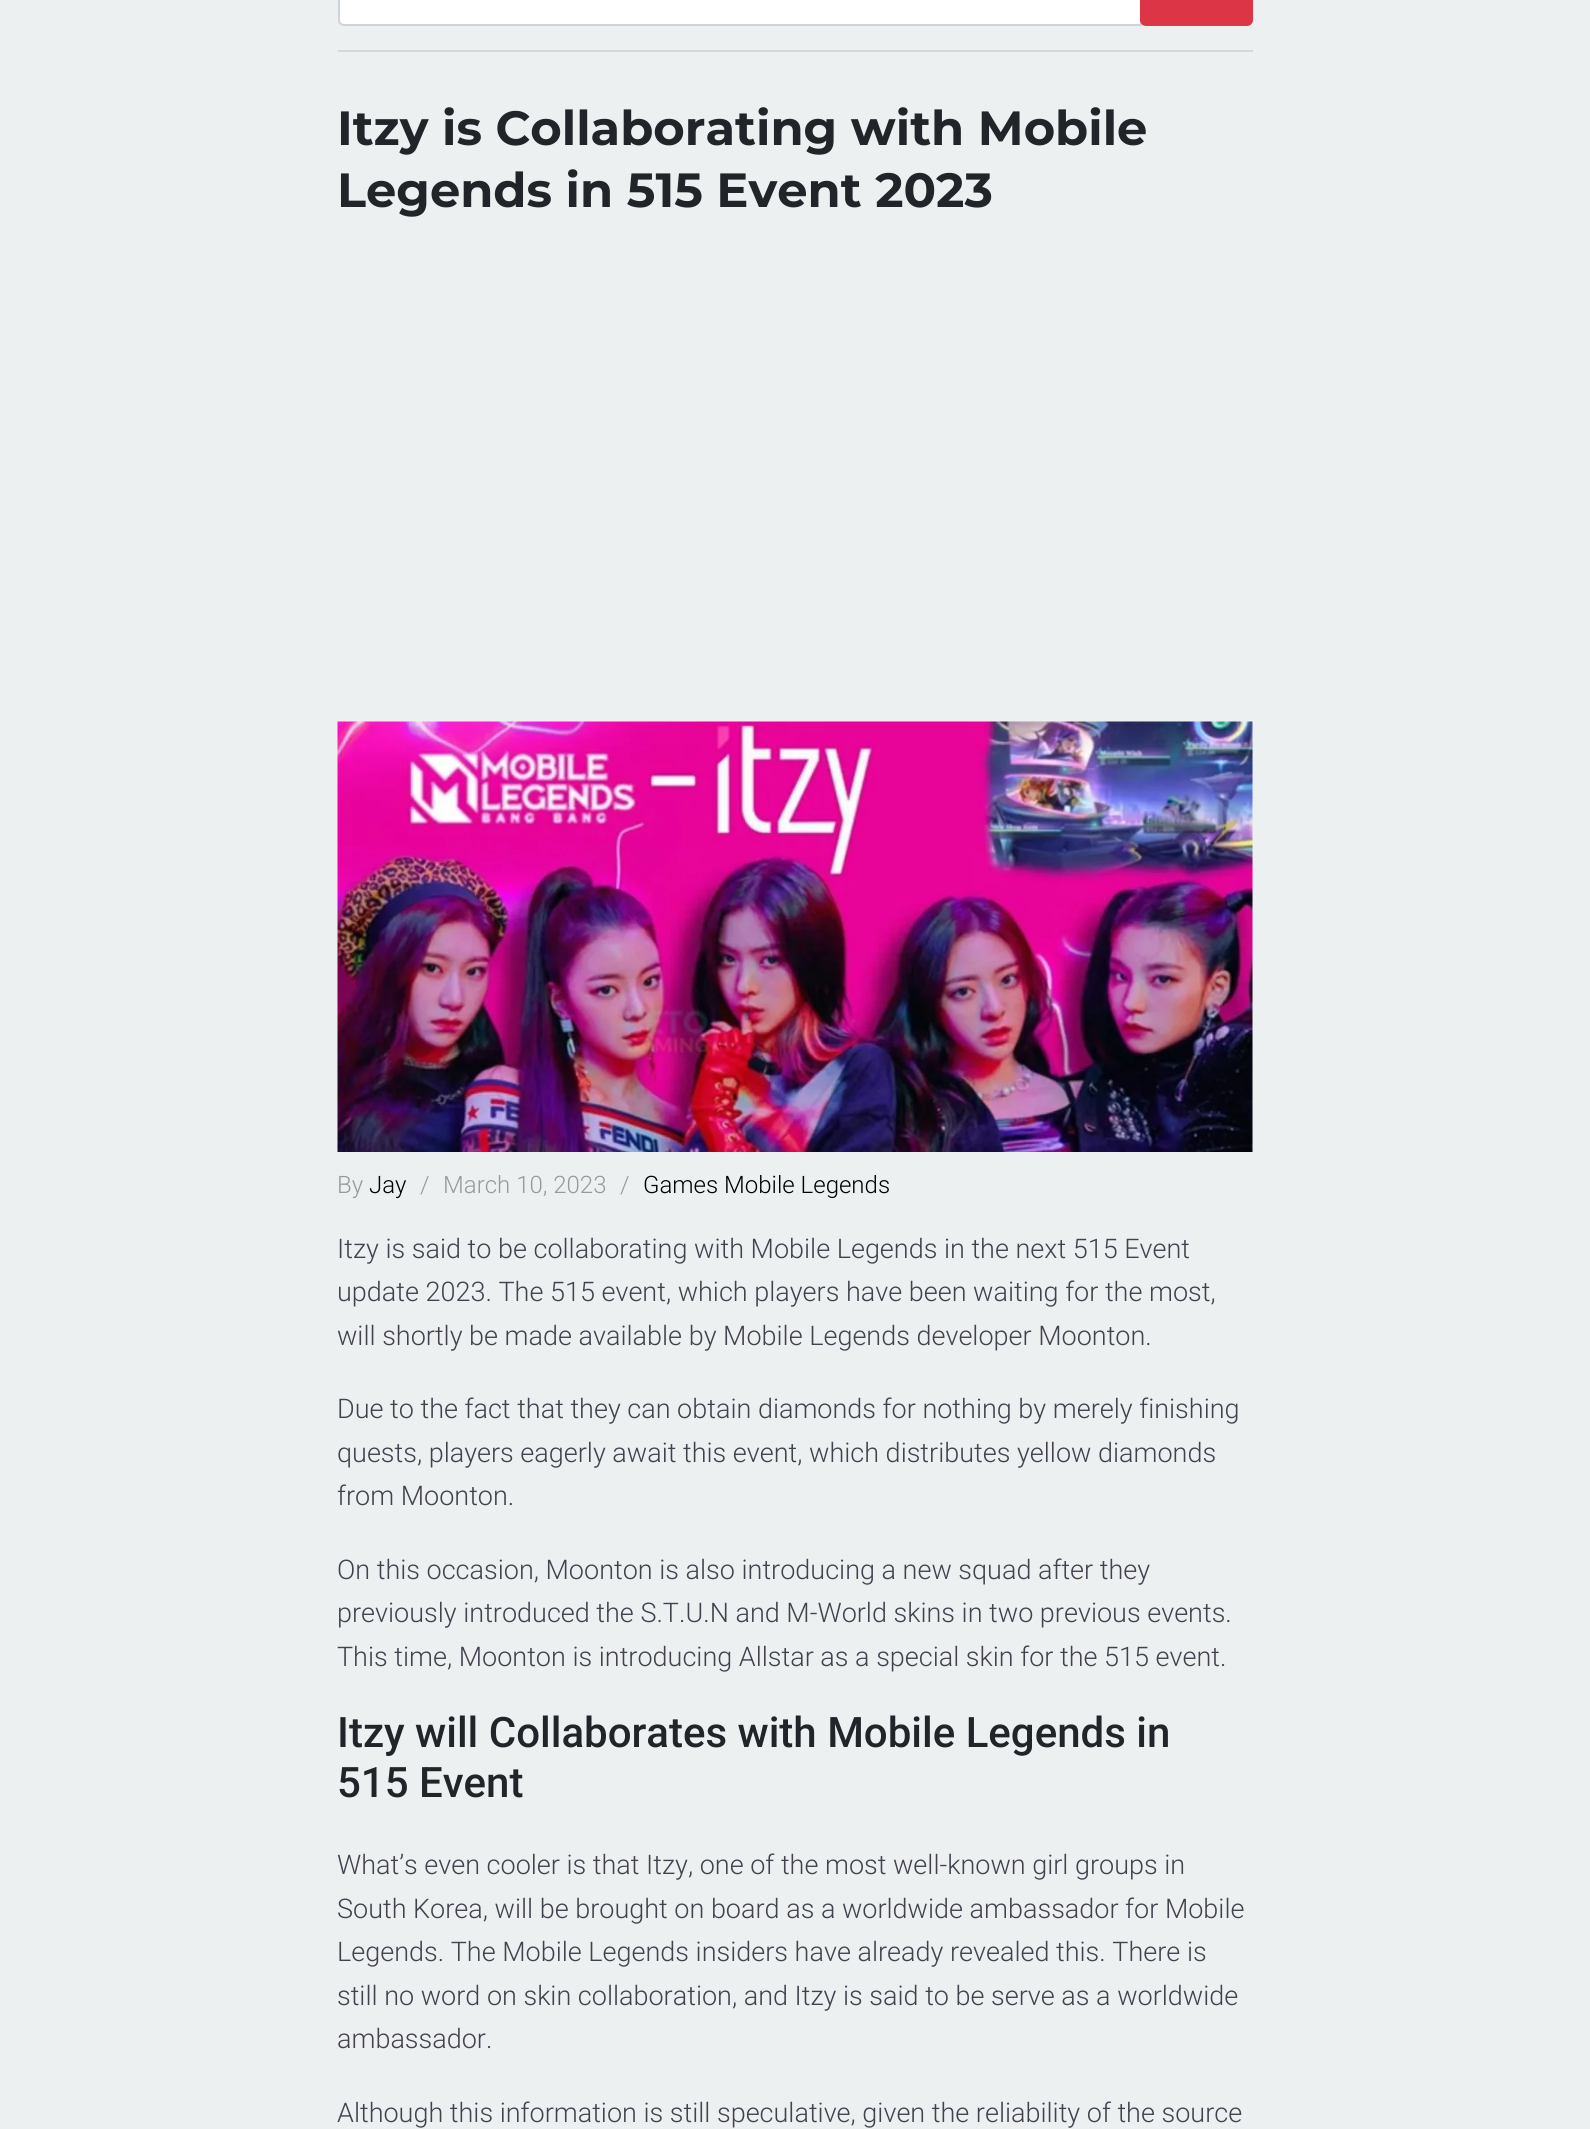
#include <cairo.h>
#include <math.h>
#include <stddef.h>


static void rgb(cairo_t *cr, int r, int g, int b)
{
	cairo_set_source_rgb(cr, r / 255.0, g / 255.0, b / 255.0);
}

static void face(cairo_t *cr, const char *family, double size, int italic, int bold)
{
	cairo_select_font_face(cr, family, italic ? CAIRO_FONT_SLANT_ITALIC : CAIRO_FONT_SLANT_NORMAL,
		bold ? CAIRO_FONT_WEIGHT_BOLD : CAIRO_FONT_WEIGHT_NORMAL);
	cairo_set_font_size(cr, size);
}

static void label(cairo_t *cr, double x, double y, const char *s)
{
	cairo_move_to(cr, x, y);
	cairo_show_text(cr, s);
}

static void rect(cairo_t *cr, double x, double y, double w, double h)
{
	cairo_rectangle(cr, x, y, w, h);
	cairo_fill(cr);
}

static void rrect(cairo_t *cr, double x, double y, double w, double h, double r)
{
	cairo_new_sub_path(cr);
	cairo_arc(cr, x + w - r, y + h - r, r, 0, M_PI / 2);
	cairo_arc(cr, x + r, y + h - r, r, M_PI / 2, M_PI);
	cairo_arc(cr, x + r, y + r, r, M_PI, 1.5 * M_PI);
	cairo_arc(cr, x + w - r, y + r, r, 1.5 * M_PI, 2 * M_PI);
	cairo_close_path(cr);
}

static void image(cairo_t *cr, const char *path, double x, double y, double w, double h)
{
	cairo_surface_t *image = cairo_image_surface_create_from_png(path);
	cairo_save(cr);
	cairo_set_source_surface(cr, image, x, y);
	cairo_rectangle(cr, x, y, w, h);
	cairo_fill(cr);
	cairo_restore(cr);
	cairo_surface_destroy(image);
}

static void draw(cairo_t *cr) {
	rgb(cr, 236, 240, 241);
	cairo_paint(cr);
	rgb(cr, 255, 255, 255);
	cairo_new_path(cr);
	cairo_move_to(cr, 344, -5);
	cairo_line_to(cr, 1140, -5);
	cairo_line_to(cr, 1140, 24);
	cairo_line_to(cr, 344, 24);
	cairo_curve_to(cr, 341, 24, 339, 22, 339, 19);
	cairo_line_to(cr, 339, 0);
	cairo_curve_to(cr, 339, -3, 341, -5, 344, -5);
	cairo_close_path(cr);
	cairo_fill(cr);
	cairo_new_path(cr);
	cairo_move_to(cr, 344, -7);
	cairo_line_to(cr, 1141, -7);
	cairo_line_to(cr, 1141, 25);
	cairo_line_to(cr, 344, 25);
	cairo_curve_to(cr, 341, 25, 339, 23, 339, 20);
	cairo_line_to(cr, 339, -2);
	cairo_curve_to(cr, 339, -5, 341, -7, 344, -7);
	cairo_close_path(cr);
	rgb(cr, 206, 212, 218);
	cairo_stroke(cr);
	rgb(cr, 220, 53, 69);
	rrect(cr, 1141, -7, 111, 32, 5);
	cairo_fill_preserve(cr);
	cairo_stroke(cr);
	rgb(cr, 212, 216, 217);
	rect(cr, 338, 50, 915, 2);
	face(cr, "Montserrat Thin", 48, 0, 0);
	rgb(cr, 33, 37, 41);
	label(cr, 337, 145, "Itzy is Collaborating with Mobile");
	label(cr, 337, 207, "Legends in 515 Event 2023");
	image(cr, "image0.png", 337, 721, 916, 431);
	face(cr, "Roboto Light", 24, 0, 0);
	rgb(cr, 153, 153, 153);
	label(cr, 337, 1193, "By");
	rgb(cr, 0, 0, 0);
	label(cr, 369, 1193, "Jay");
	rgb(cr, 153, 153, 153);
	label(cr, 420, 1193, "/");
	label(cr, 443, 1193, "March 10, 2023");
	label(cr, 620, 1193, "/");
	rgb(cr, 0, 0, 0);
	label(cr, 643, 1193, "Games Mobile Legends");
	face(cr, "Roboto Light", 27, 0, 0);
	rgb(cr, 67, 65, 78);
	label(cr, 337, 1258, "Itzy is said to be collaborating with Mobile Legends in the next 515 Event");
	label(cr, 337, 1301, "update 2023. The 515 event, which players have been waiting for the most,");
	label(cr, 337, 1345, "will shortly be made available by Mobile Legends developer Moonton.");
	label(cr, 337, 1418, "Due to the fact that they can obtain diamonds for nothing by merely finishing");
	label(cr, 337, 1462, "quests, players eagerly await this event, which distributes yellow diamonds");
	label(cr, 337, 1505, "from Moonton.");
	label(cr, 337, 1579, "On this occasion, Moonton is also introducing a new squad after they");
	label(cr, 337, 1622, "previously introduced the S.T.U.N and M-World skins in two previous events.");
	label(cr, 337, 1666, "This time, Moonton is introducing Allstar as a special skin for the 515 event.");
	face(cr, "Roboto Medium", 42, 0, 0);
	rgb(cr, 33, 37, 41);
	label(cr, 337, 1747, "Itzy will Collaborates with Mobile Legends in");
	label(cr, 337, 1797, "515 Event");
	face(cr, "Roboto Light", 27, 0, 0);
	rgb(cr, 67, 65, 78);
	label(cr, 337, 1874, "What’s even cooler is that Itzy, one of the most well-known girl groups in");
	label(cr, 337, 1918, "South Korea, will be brought on board as a worldwide ambassador for Mobile");
	label(cr, 337, 1961, "Legends. The Mobile Legends insiders have already revealed this. There is");
	label(cr, 337, 2005, "still no word on skin collaboration, and Itzy is said to be serve as a worldwide");
	label(cr, 337, 2048, "ambassador.");
	label(cr, 337, 2122, "Although this information is still speculative, given the reliability of the source");
}

int main(void) {
	cairo_surface_t *surface = cairo_image_surface_create(CAIRO_FORMAT_RGB24, 1590, 2129);
	cairo_t *cr = cairo_create(surface);
	cairo_font_options_t *options = cairo_font_options_create();
	cairo_font_options_set_hint_metrics(options, CAIRO_HINT_METRICS_OFF);
	cairo_font_options_set_hint_style(options, CAIRO_HINT_STYLE_NONE);
	cairo_set_font_options(cr, options);
	cairo_set_miter_limit(cr, 4);
	draw(cr);
	cairo_surface_write_to_png(surface, "render.png");
	cairo_font_options_destroy(options);
	cairo_destroy(cr);
	cairo_surface_destroy(surface);
	return 0;
}
